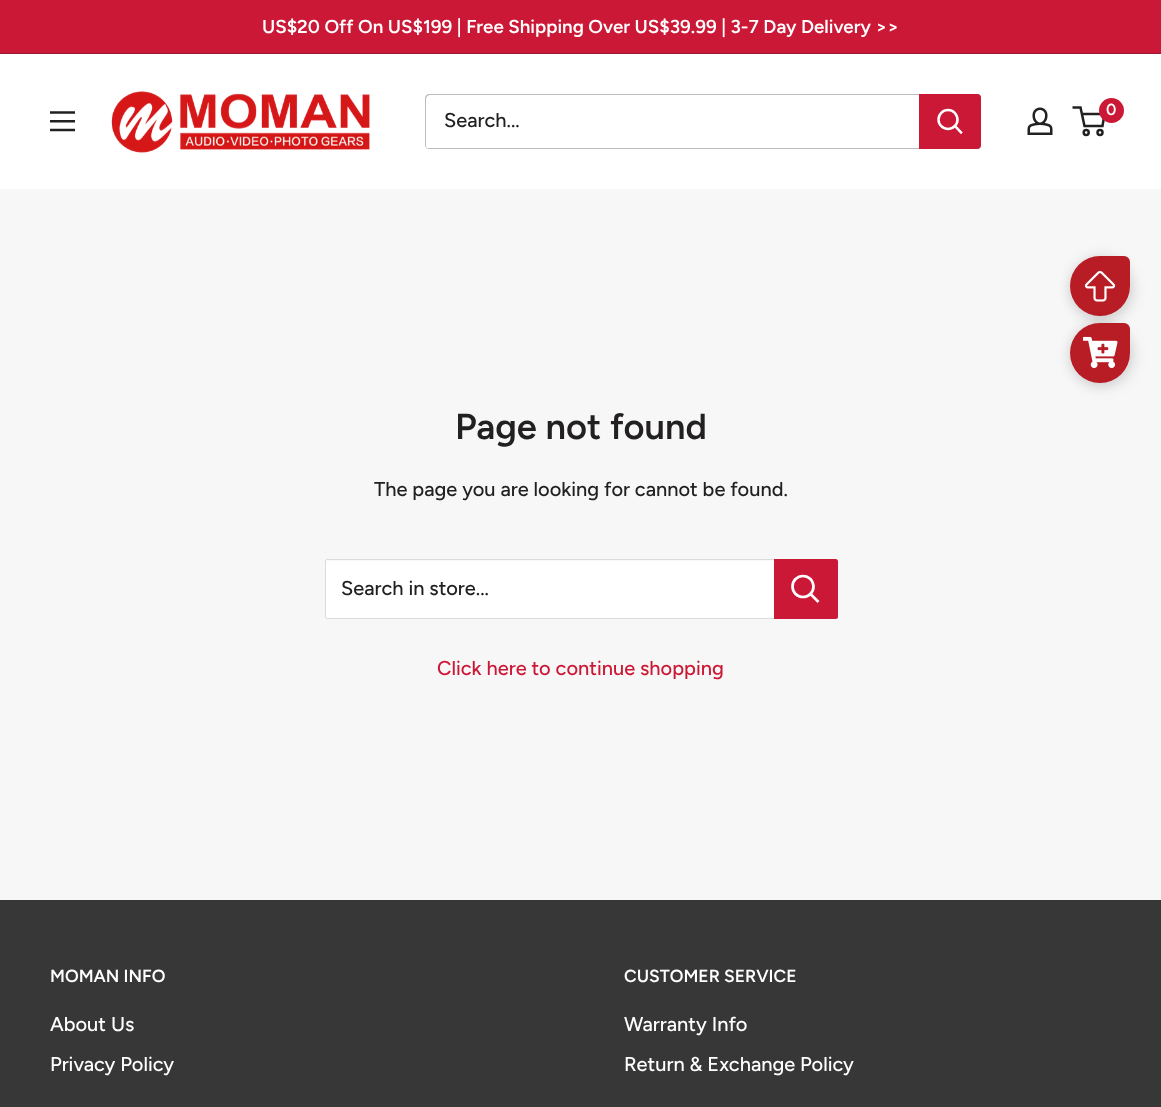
(async () => {
    const canvas = document.querySelector("canvas");
    canvas.width = 1161;
    canvas.height = 1107;
    const context = canvas.getContext("2d");
    context.miterLimit = 4;
    context.fontKerning = "normal";
    function write(s, x, y, font, color) {
        context.font = font;
        context.fillStyle = color;
        context.fillText(s, x, y);
    }
    function block(x, y, w, h, color) {
        context.fillStyle = color;
        context.fillRect(x, y, w, h);
    }
    async function photo(src, x, y, w, h) {
        const img = new Image();
        img.src = src;
        await img.decode();
        context.drawImage(img, x, y, w, h);
    }

    block(0, 0, 1161, 1107, "rgb(247, 247, 247)");
    block(0, 0, 1161, 53, "rgb(203, 24, 54)");
    block(0, 53, 1161, 1, "rgb(152, 26, 48)");
    write("US$20 Off On US$199 | Free Shipping Over US$39.99 | 3-7 Day Delivery >>", 262, 33, "600 18.75px Figtree", "rgb(255, 255, 255)");
    block(0, 54, 1161, 135, "rgb(255, 255, 255)");
    await photo("media/1.png", 111, 91, 259, 62);
    await photo("media/2.png", 1027, 107, 26, 28);
    context.beginPath();
    context.arc(1086.2, 132.5, 2.5, 0, Math.PI * 2);
    context.strokeStyle = "rgb(34, 32, 33)";
    context.lineWidth = 2.5;
    context.stroke();
    context.beginPath();
    context.arc(1100, 132.5, 2.5, 0, Math.PI * 2);
    context.stroke();
    context.beginPath();
    context.moveTo(1081.5, 114);
    context.lineTo(1104.5, 114);
    context.lineTo(1102.5, 126);
    context.lineTo(1084.5, 126);
    context.lineTo(1080.5, 107.5);
    context.lineTo(1072.5, 107.5);
    context.stroke();
    context.fillStyle = "rgb(203, 24, 54)";
    context.beginPath();
    context.arc(1111.5, 110.5, 12.5, 0, Math.PI * 2);
    context.fill();
    write("0", 1106, 115, "600 16px Figtree", "rgb(255, 255, 255)");
    await photo("media/3.png", 50, 111, 25, 21);
    context.fillStyle = "rgb(189, 188, 188)";
    context.beginPath();
    context.moveTo(426, 148);
    context.bezierCurveTo(427, 148, 428, 149, 429, 149);
    context.lineTo(977, 149);
    context.bezierCurveTo(979, 149, 981, 147, 981, 145);
    context.lineTo(981, 98);
    context.bezierCurveTo(981, 97, 981, 96, 980, 95);
    context.lineTo(980, 144);
    context.bezierCurveTo(980, 146, 978, 148, 976, 148);
    context.lineTo(428, 148);
    context.closePath();
    context.fill();
    context.beginPath();
    context.moveTo(430, 95);
    context.lineTo(980, 95);
    context.bezierCurveTo(979, 94, 978, 94, 977, 94);
    context.lineTo(429, 94);
    context.bezierCurveTo(427, 94, 425, 96, 425, 98);
    context.lineTo(425, 145);
    context.bezierCurveTo(425, 146, 426, 148, 427, 148);
    context.lineTo(426, 146);
    context.lineTo(426, 99);
    context.bezierCurveTo(426, 97, 428, 95, 430, 95);
    context.closePath();
    context.fill();
    write("Search...", 444, 127, "500 20px Figtree", "rgb(34, 32, 33)");
    context.fillStyle = "rgb(203, 24, 54)";
    context.beginPath();
    context.roundRect(919, 94, 62, 55, [0, 4, 4, 0]);
    context.fill();
    context.beginPath();
    context.moveTo(961, 132.5);
    context.lineTo(955, 126);
    context.strokeStyle = "rgb(255, 255, 255)";
    context.lineCap = "square";
    context.stroke();
    context.beginPath();
    context.arc(948, 119.5, 9.5, 0, Math.PI * 2);
    context.stroke();
    context.fillStyle = "rgba(0, 0, 0, 0.1)";
    context.filter = "blur(6px)";
    context.beginPath();
    context.roundRect(1070, 259, 60, 60, 30);
    context.fill();
    context.filter = "none";
    context.fillStyle = "rgba(0, 0, 0, 0.08)";
    context.filter = "blur(7px)";
    context.beginPath();
    context.roundRect(1070, 256, 65, 65, 32.5);
    context.fill();
    context.filter = "none";
    context.fillStyle = "rgb(184, 28, 37)";
    context.beginPath();
    context.roundRect(1070, 256, 60, 60, [30, 6, 30, 30]);
    context.fill();
    await photo("media/4.png", 1084, 271, 32, 31);
    context.fillStyle = "rgba(0, 0, 0, 0.1)";
    context.filter = "blur(6px)";
    context.beginPath();
    context.roundRect(1070, 325, 60, 60, 30);
    context.fill();
    context.filter = "none";
    context.fillStyle = "rgba(0, 0, 0, 0.08)";
    context.filter = "blur(7px)";
    context.beginPath();
    context.roundRect(1070, 323, 65, 65, 32.5);
    context.fill();
    context.filter = "none";
    context.fillStyle = "rgb(184, 28, 37)";
    context.beginPath();
    context.roundRect(1070, 323, 60, 60, [30, 6, 30, 30]);
    context.fill();
    await photo("media/5.png", 1083, 336, 35, 32);
    write("Page not found", 455, 439, "600 36.25px Figtree", "rgb(34, 32, 33)");
    write("The page you are looking for cannot be found.", 374, 496, "500 20px Figtree", "rgb(34, 32, 33)");
    context.fillStyle = "rgb(255, 255, 255)";
    context.beginPath();
    context.roundRect(325, 559, 449, 60, [2.5, 0, 0, 2.5]);
    context.fill();
    context.fillStyle = "rgb(249, 249, 249)";
    context.beginPath();
    context.moveTo(328, 561);
    context.lineTo(774, 561);
    context.lineTo(774, 560);
    context.lineTo(327, 560);
    context.lineTo(326, 561);
    context.lineTo(326, 562);
    context.closePath();
    context.fill();
    block(326, 559, 448, 1, "rgb(219, 219, 219)");
    block(326, 618, 448, 1, "rgb(219, 219, 219)");
    block(325, 560, 1, 58, "rgb(219, 219, 219)");
    write("Search in store...", 341, 595, "500 20px Figtree", "rgb(34, 32, 33)");
    context.fillStyle = "rgb(203, 24, 54)";
    context.beginPath();
    context.roundRect(774, 559, 64, 60, [0, 2.5, 2.5, 0]);
    context.fill();
    context.beginPath();
    context.moveTo(817.5, 601);
    context.lineTo(810.5, 594);
    context.lineWidth = 2.7;
    context.stroke();
    context.beginPath();
    context.arc(803, 586.5, 10.5, 0, Math.PI * 2);
    context.stroke();
    write("Click here to continue shopping", 437, 675, "500 20px Figtree", "rgb(203, 24, 54)");
    block(0, 900, 1161, 207, "rgb(55, 55, 55)");
    write("MOMAN INFO", 50, 982, "600 17.5px Figtree", "rgb(255, 255, 255)");
    write("About Us", 50, 1031, "500 20px Figtree", "rgb(255, 255, 255)");
    write("Privacy Policy", 50, 1071, "500 20px Figtree", "rgb(255, 255, 255)");
    write("CUSTOMER SERVICE", 624, 982, "600 17.5px Figtree", "rgb(255, 255, 255)");
    write("Warranty Info", 624, 1031, "500 20px Figtree", "rgb(255, 255, 255)");
    write("Return & Exchange Policy", 624, 1071, "500 20px Figtree", "rgb(255, 255, 255)");
})();
